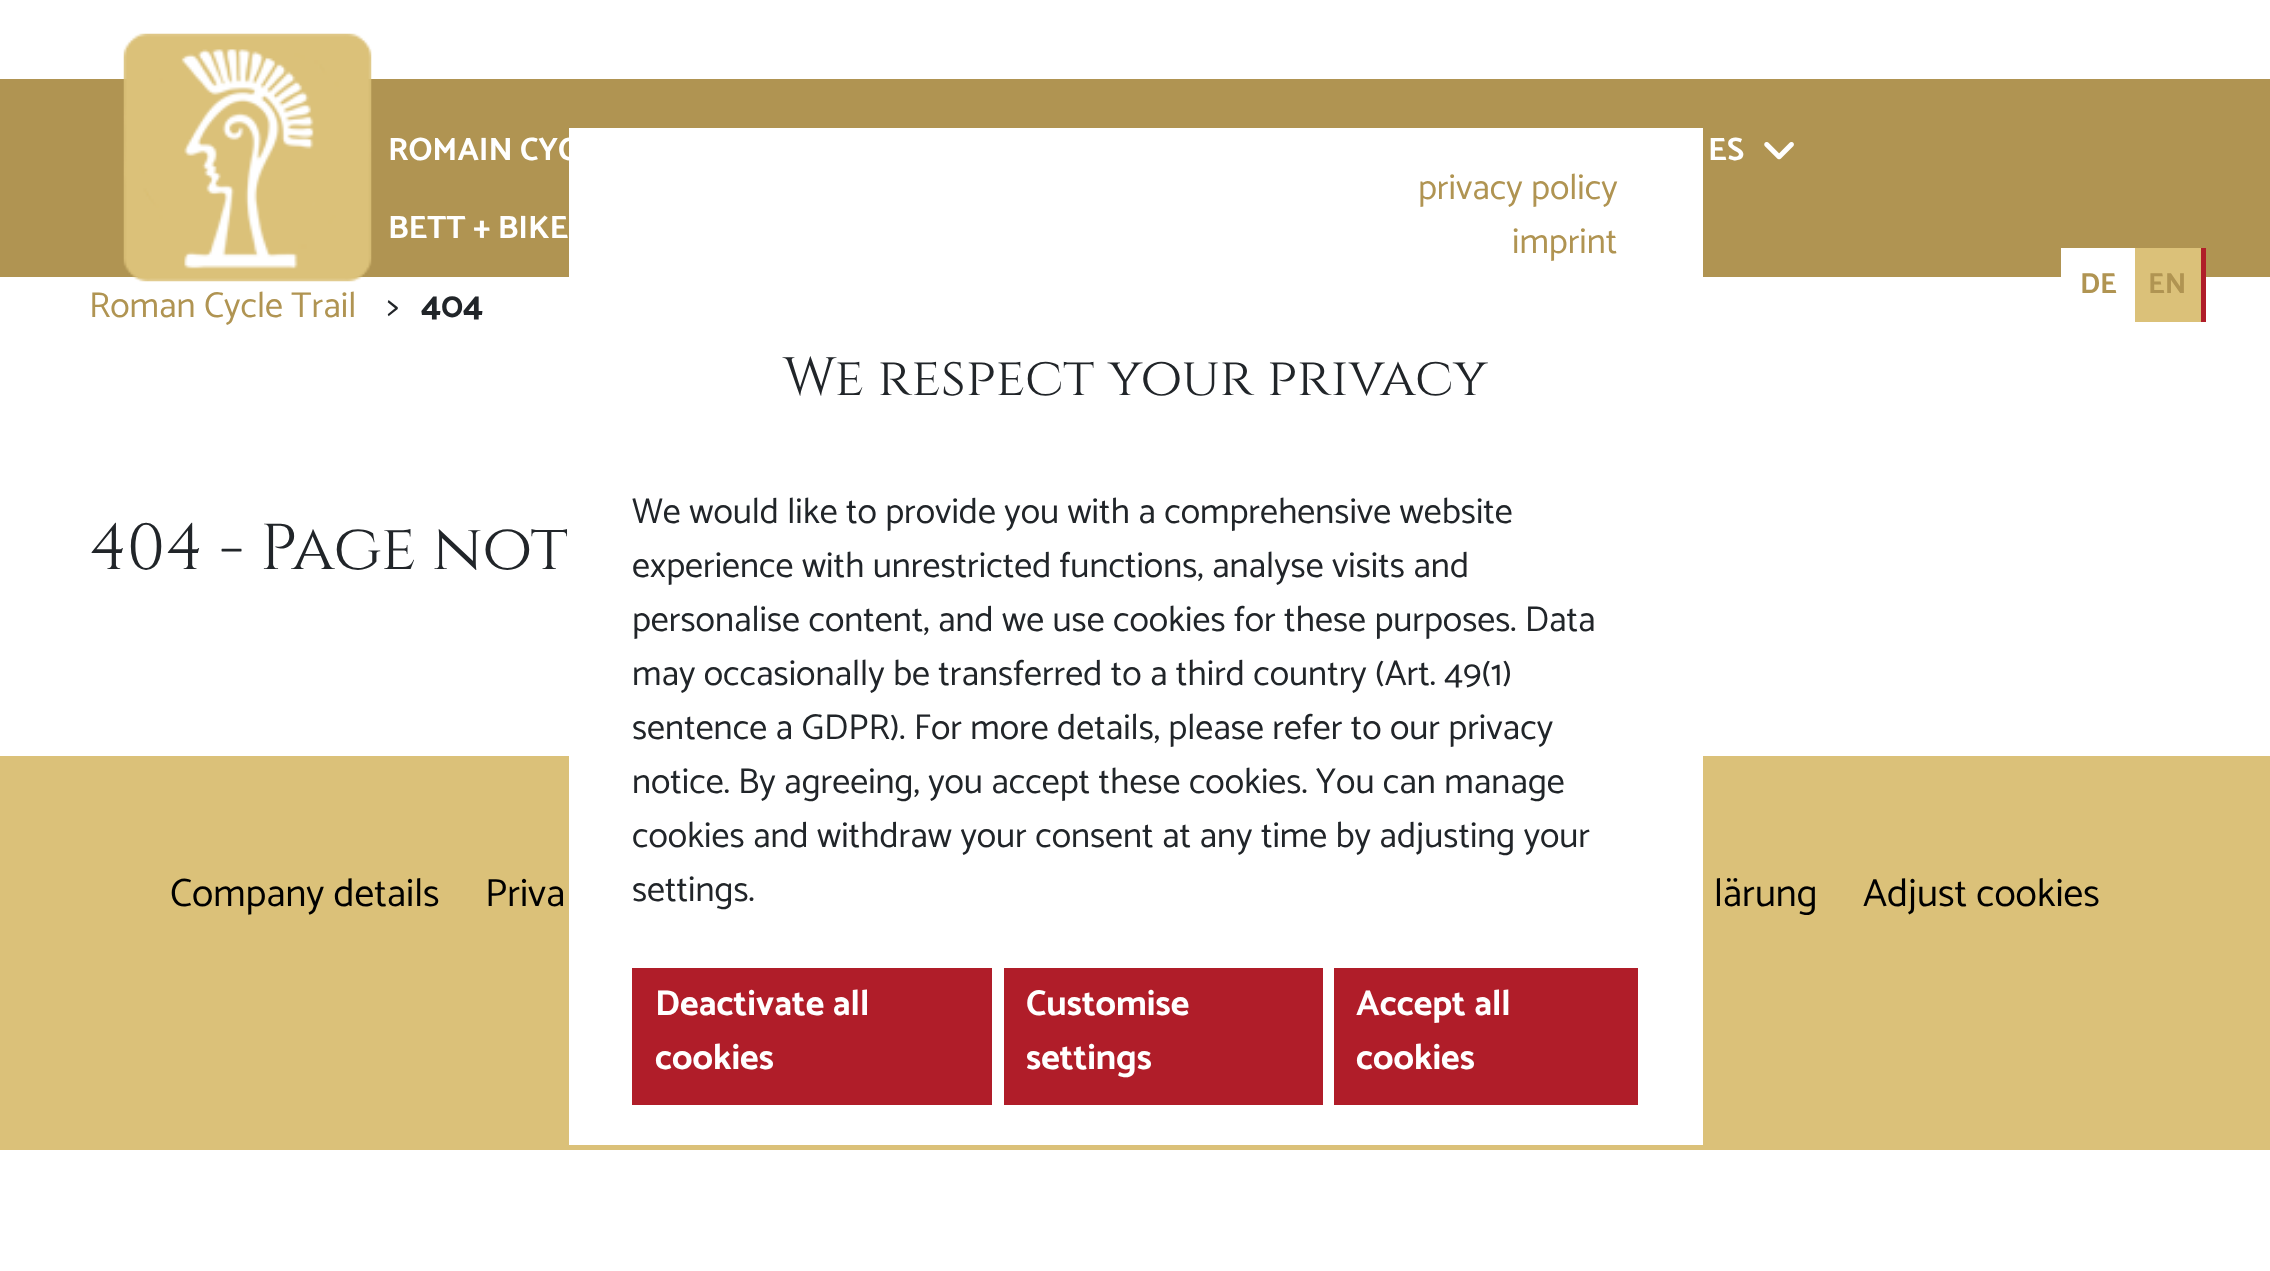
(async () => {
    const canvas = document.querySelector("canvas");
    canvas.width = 2270;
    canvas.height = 1271;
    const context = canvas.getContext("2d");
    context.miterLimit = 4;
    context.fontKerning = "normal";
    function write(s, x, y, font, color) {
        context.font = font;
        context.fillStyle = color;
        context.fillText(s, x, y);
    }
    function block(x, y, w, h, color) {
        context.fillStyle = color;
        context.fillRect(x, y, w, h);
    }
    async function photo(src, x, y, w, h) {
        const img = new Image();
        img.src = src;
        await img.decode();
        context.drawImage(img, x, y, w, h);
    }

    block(0, 0, 2270, 1271, "rgb(255, 255, 255)");
    block(0, 79, 2270, 198, "rgb(176, 148, 82)");
    await photo("media/1.png", 123, 33, 249, 249);
    write("ROMAIN CYC", 388, 160, "bold 32.5px Catamaran", "rgb(255, 255, 255)");
    write("ES", 1708, 160, "bold 32.5px Catamaran", "rgb(255, 255, 255)");
    await photo("media/2.png", 1764, 142, 30, 18);
    write("BETT + BIKE", 388, 238, "bold 32.5px Catamaran", "rgb(255, 255, 255)");
    block(2061, 248, 74, 29, "rgb(255, 255, 255)");
    block(2201, 248, 5, 74, "rgb(176, 29, 41)");
    write("DE", 2080, 293, "bold 29px Catamaran", "rgb(176, 148, 82)");
    block(2135, 248, 66, 74, "rgb(219, 193, 121)");
    write("EN", 2148, 293, "bold 29px Catamaran", "rgb(176, 148, 82)");
    write("Roman Cycle Trail", 89, 317, "36px Catamaran", "rgb(176, 148, 82)");
    write(">", 387, 317, "36px Catamaran", "rgb(33, 37, 41)");
    write("404", 421, 317, "bold 36px Catamaran", "rgb(33, 37, 41)");
    write("404 - Page not", 89, 569, "64.75px Cinzel", "rgb(33, 37, 41)");
    block(0, 756, 2270, 394, "rgb(219, 193, 121)");
    block(569, 128, 1134, 1017, "rgb(255, 255, 255)");
    write("privacy policy", 1418, 199, "36px Catamaran", "rgb(176, 148, 82)");
    write("imprint", 1512, 253, "36px Catamaran", "rgb(176, 148, 82)");
    write("We respect your privacy", 783, 395, "54px Cinzel", "rgb(33, 37, 41)");
    write("We would like to provide you with a comprehensive website", 632, 523, "36px Catamaran", "rgb(33, 37, 41)");
    write("experience with unrestricted functions, analyse visits and", 632, 577, "36px Catamaran", "rgb(33, 37, 41)");
    write("personalise content, and we use cookies for these purposes. Data", 632, 631, "36px Catamaran", "rgb(33, 37, 41)");
    write("may occasionally be transferred to a third country (Art. 49(1)", 632, 685, "36px Catamaran", "rgb(33, 37, 41)");
    write("sentence a GDPR). For more details, please refer to our privacy", 632, 739, "36px Catamaran", "rgb(33, 37, 41)");
    write("notice. By agreeing, you accept these cookies. You can manage", 632, 793, "36px Catamaran", "rgb(33, 37, 41)");
    write("cookies and withdraw your consent at any time by adjusting your", 632, 847, "36px Catamaran", "rgb(33, 37, 41)");
    write("settings.", 632, 901, "36px Catamaran", "rgb(33, 37, 41)");
    block(632, 968, 360, 137, "rgb(176, 29, 41)");
    write("Deactivate all", 655, 1015, "bold 36px Catamaran", "rgb(255, 255, 255)");
    write("cookies", 655, 1069, "bold 36px Catamaran", "rgb(255, 255, 255)");
    block(1004, 968, 319, 137, "rgb(176, 29, 41)");
    write("Customise", 1026, 1015, "bold 36px Catamaran", "rgb(255, 255, 255)");
    write("settings", 1026, 1069, "bold 36px Catamaran", "rgb(255, 255, 255)");
    block(1334, 968, 304, 137, "rgb(176, 29, 41)");
    write("Accept all", 1356, 1015, "bold 36px Catamaran", "rgb(255, 255, 255)");
    write("cookies", 1356, 1069, "bold 36px Catamaran", "rgb(255, 255, 255)");
    write("Company details", 170, 906, "39.5px Catamaran", "rgb(0, 0, 0)");
    write("Priva", 485, 906, "39.5px Catamaran", "rgb(0, 0, 0)");
    write("lärung", 1714, 906, "39.5px Catamaran", "rgb(0, 0, 0)");
    write("Adjust cookies", 1863, 906, "39.5px Catamaran", "rgb(0, 0, 0)");
})();
